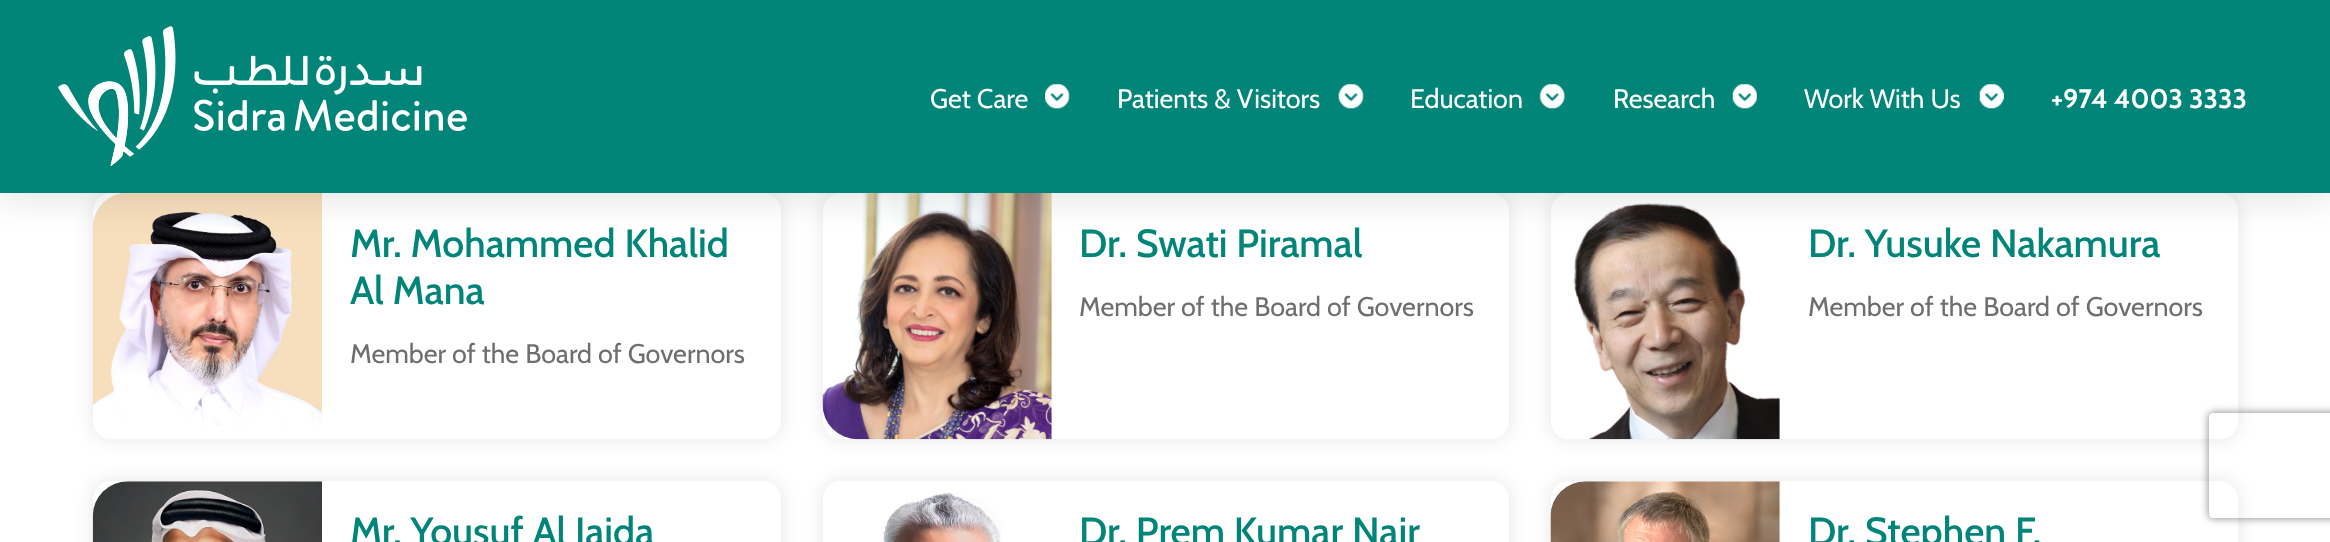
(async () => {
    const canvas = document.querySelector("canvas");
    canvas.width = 2330;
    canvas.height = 542;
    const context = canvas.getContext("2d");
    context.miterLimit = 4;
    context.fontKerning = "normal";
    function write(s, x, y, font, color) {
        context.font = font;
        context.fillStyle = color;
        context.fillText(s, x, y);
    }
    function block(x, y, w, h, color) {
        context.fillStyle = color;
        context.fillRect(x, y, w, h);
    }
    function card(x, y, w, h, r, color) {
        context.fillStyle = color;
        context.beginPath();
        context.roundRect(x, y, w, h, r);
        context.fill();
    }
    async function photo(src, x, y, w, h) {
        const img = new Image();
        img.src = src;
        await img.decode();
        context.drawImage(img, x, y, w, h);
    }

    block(0, 0, 2330, 542, "rgb(255, 255, 255)");
    context.fillStyle = "rgba(0, 0, 0, 0.1)";
    context.filter = "blur(9px)";
    context.beginPath();
    context.roundRect(93, 193, 688, 246, 18);
    context.fill();
    context.filter = "none";
    card(93, 193, 688, 246, 18, "rgb(255, 255, 255)");
    await photo("media/7.png", 93, 193, 229, 233);
    context.fillStyle = "rgba(0, 0, 0, 0.1)";
    context.filter = "blur(9px)";
    context.beginPath();
    context.roundRect(823, 193, 686, 246, 18);
    context.fill();
    context.filter = "none";
    card(823, 193, 686, 246, 18, "rgb(255, 255, 255)");
    await photo("media/8.png", 822, 193, 230, 247);
    context.save();
    context.beginPath();
    context.moveTo(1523, 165);
    context.lineTo(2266, 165);
    context.lineTo(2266, 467);
    context.lineTo(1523, 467);
    context.closePath();
    context.moveTo(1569, 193);
    context.lineTo(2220, 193);
    context.bezierCurveTo(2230, 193, 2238, 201, 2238, 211);
    context.lineTo(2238, 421);
    context.bezierCurveTo(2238, 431, 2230, 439, 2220, 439);
    context.lineTo(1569, 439);
    context.bezierCurveTo(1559, 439, 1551, 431, 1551, 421);
    context.lineTo(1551, 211);
    context.bezierCurveTo(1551, 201, 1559, 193, 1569, 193);
    context.closePath();
    context.clip("evenodd");
    context.fillStyle = "rgba(0, 0, 0, 0.1)";
    context.filter = "blur(9px)";
    context.beginPath();
    context.roundRect(1551, 193, 687, 246, 18);
    context.fill();
    context.filter = "none";
    context.restore();
    await photo("media/9.png", 1573, 203, 207, 237);
    context.fillStyle = "rgba(0, 0, 0, 0.1)";
    context.filter = "blur(17.5px)";
    context.beginPath();
    context.rect(0, 7, 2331, 193);
    context.fill();
    context.filter = "none";
    block(0, 0, 2330, 193, "rgb(0, 133, 120)");
    await photo("media/1.png", 58, 26, 409, 140);
    write("Get Care", 930, 108, "26.9px Cabin", "rgb(255, 255, 255)");
    await photo("media/2.png", 1045, 84, 25, 25);
    write("Patients & Visitors", 1117, 108, "26.9px Cabin", "rgb(255, 255, 255)");
    await photo("media/3.png", 1338, 84, 26, 25);
    write("Education", 1410, 108, "26.9px Cabin", "rgb(255, 255, 255)");
    await photo("media/4.png", 1539, 84, 26, 25);
    write("Research", 1613, 108, "26.9px Cabin", "rgb(255, 255, 255)");
    await photo("media/5.png", 1732, 84, 25, 25);
    write("Work With Us", 1804, 108, "26.9px Cabin", "rgb(255, 255, 255)");
    await photo("media/6.png", 1979, 84, 25, 25);
    write("+974 4003 3333", 2051, 108, "bold 26.9px Cabin", "rgb(255, 255, 255)");
    write("Mr. Mohammed Khalid", 350, 257, "500 39.25px Cabin", "rgb(0, 133, 120)");
    write("Al Mana", 350, 304, "500 39.25px Cabin", "rgb(0, 133, 120)");
    write("Member of the Board of Governors", 350, 363, "26.9px Cabin", "rgb(109, 110, 112)");
    write("Dr. Swati Piramal", 1079, 257, "500 39.25px Cabin", "rgb(0, 133, 120)");
    write("Member of the Board of Governors", 1079, 316, "26.9px Cabin", "rgb(109, 110, 112)");
    write("Dr. Yusuke Nakamura", 1808, 257, "500 39.25px Cabin", "rgb(0, 133, 120)");
    write("Member of the Board of Governors", 1808, 316, "26.9px Cabin", "rgb(109, 110, 112)");
    context.fillStyle = "rgba(0, 0, 0, 0.1)";
    context.filter = "blur(9px)";
    context.beginPath();
    context.roundRect(93, 481, 688, 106, 18);
    context.fill();
    context.filter = "none";
    card(93, 481, 688, 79, 18, "rgb(255, 255, 255)");
    await photo("media/10.png", 92, 481, 230, 61);
    write("Mr. Yousuf Al Jaida", 350, 545, "500 39.25px Cabin", "rgb(0, 133, 120)");
    context.fillStyle = "rgba(0, 0, 0, 0.1)";
    context.filter = "blur(9px)";
    context.beginPath();
    context.roundRect(823, 481, 686, 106, 18);
    context.fill();
    context.filter = "none";
    card(823, 481, 686, 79, 18, "rgb(255, 255, 255)");
    await photo("media/11.png", 883, 492, 119, 50);
    write("Dr. Prem Kumar Nair", 1079, 545, "500 39.25px Cabin", "rgb(0, 133, 120)");
    context.fillStyle = "rgba(0, 0, 0, 0.1)";
    context.filter = "blur(9px)";
    context.beginPath();
    context.roundRect(1551, 481, 687, 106, 18);
    context.fill();
    context.filter = "none";
    card(1551, 481, 687, 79, 18, "rgb(255, 255, 255)");
    await photo("media/12.png", 1550, 481, 230, 61);
    write("Dr. Stephen F.", 1808, 545, "500 39.25px Cabin", "rgb(0, 133, 120)");
    context.save();
    context.beginPath();
    context.moveTo(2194, 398);
    context.lineTo(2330, 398);
    context.lineTo(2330, 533);
    context.lineTo(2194, 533);
    context.closePath();
    context.moveTo(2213, 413);
    context.lineTo(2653, 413);
    context.bezierCurveTo(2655, 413, 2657, 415, 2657, 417);
    context.lineTo(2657, 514);
    context.bezierCurveTo(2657, 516, 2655, 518, 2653, 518);
    context.lineTo(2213, 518);
    context.bezierCurveTo(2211, 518, 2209, 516, 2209, 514);
    context.lineTo(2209, 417);
    context.bezierCurveTo(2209, 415, 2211, 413, 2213, 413);
    context.closePath();
    context.clip("evenodd");
    context.fillStyle = "rgb(128, 128, 128)";
    context.filter = "blur(4.5px)";
    context.beginPath();
    context.roundRect(2209, 413, 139, 105, 4);
    context.fill();
    context.filter = "none";
    context.restore();
})();
